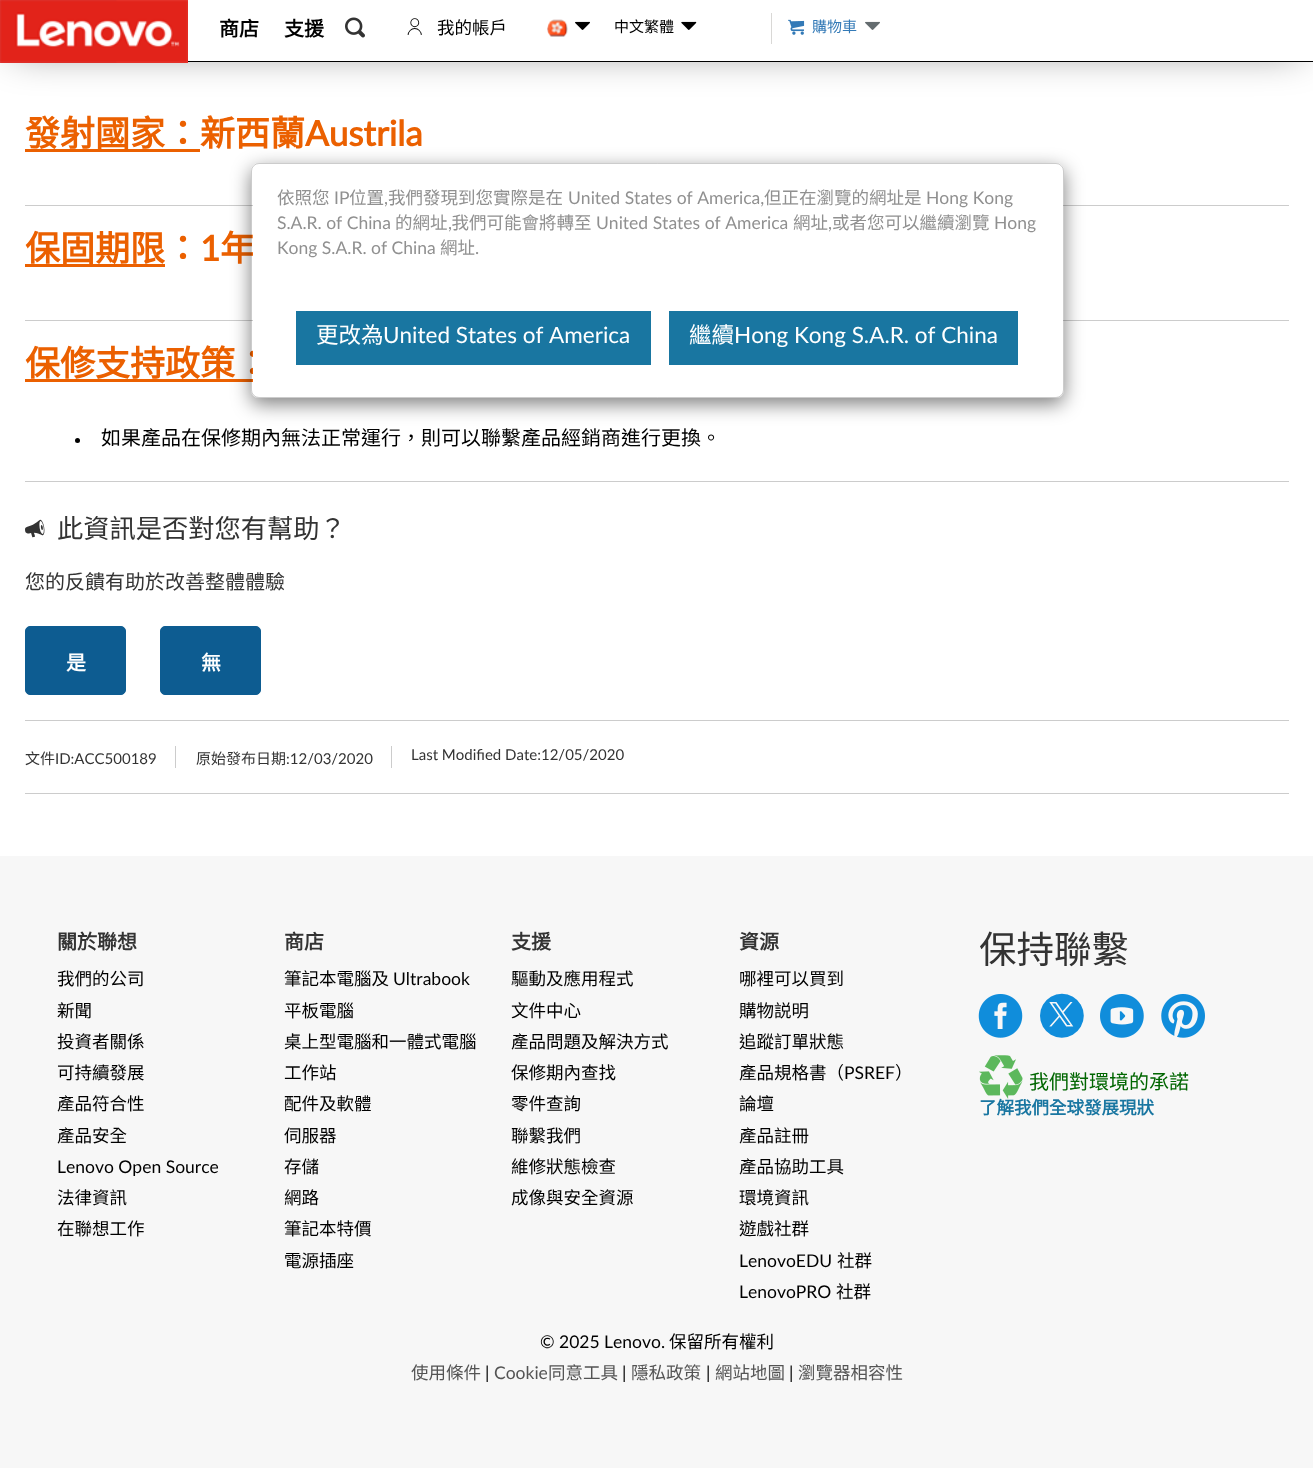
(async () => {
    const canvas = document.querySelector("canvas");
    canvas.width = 1313;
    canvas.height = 1468;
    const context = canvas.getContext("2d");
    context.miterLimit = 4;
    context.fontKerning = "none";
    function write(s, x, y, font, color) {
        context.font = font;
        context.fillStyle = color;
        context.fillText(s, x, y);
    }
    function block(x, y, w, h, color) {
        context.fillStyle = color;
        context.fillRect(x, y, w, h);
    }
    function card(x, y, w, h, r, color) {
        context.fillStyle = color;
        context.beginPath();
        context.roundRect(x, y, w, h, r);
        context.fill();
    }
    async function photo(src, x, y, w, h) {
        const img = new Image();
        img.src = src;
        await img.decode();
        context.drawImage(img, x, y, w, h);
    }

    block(0, 0, 1313, 1468, "rgb(255, 255, 255)");
    context.fillStyle = "rgba(0, 0, 0, 0.5)";
    context.filter = "blur(20px)";
    context.beginPath();
    context.rect(13, 13, 1288, 37);
    context.fill();
    context.filter = "none";
    block(188, 0, 1125, 61, "rgb(255, 255, 255)");
    block(188, 61, 1125, 1, "rgb(0, 0, 0)");
    await photo("media/1.png", 0, 0, 188, 63);
    write("商店", 219, 36, "bold 20px Noto Sans CJK HK", "rgb(0, 0, 0)");
    write("支援", 284, 36, "bold 20px Noto Sans CJK HK", "rgb(0, 0, 0)");
    await photo("media/2.png", 345, 17, 20, 21);
    write("󡑆", 406, 34, "17.5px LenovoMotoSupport", "rgb(0, 0, 0)");
    write("我的帳戶", 437, 34, "17.5px Noto Sans CJK HK", "rgb(0, 0, 0)");
    await photo("media/3.png", 547, 19, 21, 18);
    await photo("media/4.png", 575, 21, 15, 9);
    write("中文繁體", 614, 32, "15px Noto Sans CJK HK", "rgb(0, 0, 0)");
    await photo("media/5.png", 681, 21, 16, 9);
    block(771, 13, 1, 31, "rgb(217, 216, 214)");
    await photo("media/6.png", 788, 19, 17, 16);
    write("購物車", 812, 32, "15px Noto Sans CJK HK", "rgb(51, 122, 183)");
    await photo("media/7.png", 865, 21, 15, 9);
    write("發射國家：新西蘭", 25, 146, "bold 35px Noto Sans CJK HK", "rgb(235, 96, 0)");
    block(25, 149, 175, 3, "rgb(235, 96, 0)");
    write("Austrila", 305, 146, "bold 35px Lato", "rgb(235, 96, 0)");
    block(25, 205, 1264, 1, "rgb(204, 204, 204)");
    write("保固期限：", 25, 261, "bold 35px Noto Sans CJK HK", "rgb(235, 96, 0)");
    block(25, 264, 140, 3, "rgb(235, 96, 0)");
    write("1", 200, 261, "bold 35px Lato", "rgb(235, 96, 0)");
    write("年", 220, 261, "bold 35px Noto Sans CJK HK", "rgb(235, 96, 0)");
    block(25, 320, 1264, 1, "rgb(204, 204, 204)");
    write("保修支持政策：", 25, 376, "bold 35px Noto Sans CJK HK", "rgb(235, 96, 0)");
    block(25, 379, 228, 3, "rgb(235, 96, 0)");
    context.fillStyle = "rgb(0, 0, 0)";
    context.beginPath();
    context.arc(77.5, 440.5, 2.5, 0, Math.PI * 2);
    context.fill();
    write("如果產品在保修期內無法正常運行，則可以聯繫產品經銷商進行更換。", 101, 445, "20px Noto Sans CJK HK", "rgb(0, 0, 0)");
    block(25, 481, 1264, 1, "rgb(204, 204, 204)");
    write("󡉇", 25, 538, "20px LenovoMotoSupport", "rgb(51, 51, 51)");
    write("此資訊是否對您有幫助？", 57, 538, "26.25px Noto Sans CJK HK", "rgb(51, 51, 51)");
    write("您的反饋有助於改善整體體驗", 25, 589, "20px Noto Sans CJK HK", "rgb(51, 51, 51)");
    context.fillStyle = "rgb(13, 92, 145)";
    context.beginPath();
    context.roundRect(25.5, 626.5, 100, 68, 4.5);
    context.fill();
    context.strokeStyle = "rgb(13, 92, 145)";
    context.stroke();
    write("是", 66, 670, "bold 20px Noto Sans CJK HK", "rgb(255, 255, 255)");
    context.fillStyle = "rgb(13, 92, 145)";
    context.beginPath();
    context.roundRect(160.5, 626.5, 100, 68, 4.5);
    context.fill();
    context.stroke();
    write("無", 201, 670, "bold 20px Noto Sans CJK HK", "rgb(255, 255, 255)");
    block(25, 720, 1264, 1, "rgb(204, 204, 204)");
    block(25, 793, 1264, 1, "rgb(204, 204, 204)");
    block(175, 746, 1, 22, "rgb(204, 204, 204)");
    write("文件", 25, 764, "15px Noto Sans CJK HK", "rgb(51, 51, 51)");
    write("ID:ACC500189", 55, 764, "15px Lato", "rgb(51, 51, 51)");
    block(391, 746, 1, 22, "rgb(204, 204, 204)");
    write("原始發布日期", 196, 764, "15px Noto Sans CJK HK", "rgb(51, 51, 51)");
    write(":12/03/2020", 286, 764, "15px Lato", "rgb(51, 51, 51)");
    write("Last Modified Date:12/05/2020", 411, 760, "15px Lato", "rgb(51, 51, 51)");
    block(0, 856, 1313, 612, "rgb(247, 247, 247)");
    context.save();
    context.beginPath();
    context.moveTo(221, 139);
    context.lineTo(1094, 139);
    context.lineTo(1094, 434);
    context.lineTo(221, 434);
    context.closePath();
    context.moveTo(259, 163);
    context.lineTo(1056, 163);
    context.bezierCurveTo(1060.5, 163, 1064, 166.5, 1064, 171);
    context.lineTo(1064, 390);
    context.bezierCurveTo(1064, 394.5, 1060.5, 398, 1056, 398);
    context.lineTo(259, 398);
    context.bezierCurveTo(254.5, 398, 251, 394.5, 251, 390);
    context.lineTo(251, 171);
    context.bezierCurveTo(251, 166.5, 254.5, 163, 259, 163);
    context.closePath();
    context.clip("evenodd");
    context.fillStyle = "rgba(0, 0, 0, 0.5)";
    context.filter = "blur(9.5px)";
    context.beginPath();
    context.roundRect(251, 169, 813, 235, 8);
    context.fill();
    context.filter = "none";
    context.restore();
    card(253, 164, 810, 232, 6, "rgb(255, 255, 255)");
    context.beginPath();
    context.roundRect(251.5, 163.5, 812, 234, 7.5);
    context.strokeStyle = "rgba(0, 0, 0, 0.2)";
    context.stroke();
    write("依照您", 277, 204, "17.5px Noto Sans CJK HK", "rgb(144, 144, 144)");
    write("IP", 334, 204, "17.5px Lato", "rgb(144, 144, 144)");
    write("位置 我們發現到您實際是在", 349, 204, "17.5px Noto Sans CJK HK", "rgb(144, 144, 144)");
    write("United States of America,", 568, 204, "17.5px Lato", "rgb(144, 144, 144)");
    write("但正在瀏覽的網址是", 764, 204, "17.5px Noto Sans CJK HK", "rgb(144, 144, 144)");
    write("Hong Kong", 926, 204, "17.5px Lato", "rgb(144, 144, 144)");
    write(",", 384, 204, "17.5px Lato", "rgb(144, 144, 144)");
    write("S.A.R. of China", 277, 229, "17.5px Lato", "rgb(144, 144, 144)");
    write("的網址 我們可能會將轉至", 395, 229, "17.5px Noto Sans CJK HK", "rgb(144, 144, 144)");
    write("United States of America", 596, 229, "17.5px Lato", "rgb(144, 144, 144)");
    write("網址 或者您可以繼續瀏覽", 793, 229, "17.5px Noto Sans CJK HK", "rgb(144, 144, 144)");
    write("Hong", 994, 229, "17.5px Lato", "rgb(144, 144, 144)");
    write(",", 448, 229, "17.5px Lato", "rgb(144, 144, 144)");
    write(",", 828, 229, "17.5px Lato", "rgb(144, 144, 144)");
    write("Kong S.A.R. of China", 277, 254, "17.5px Lato", "rgb(144, 144, 144)");
    write("網址", 440, 254, "17.5px Noto Sans CJK HK", "rgb(144, 144, 144)");
    write(".", 475, 254, "17.5px Lato", "rgb(144, 144, 144)");
    block(296, 311, 355, 54, "rgb(25, 118, 161)");
    write("更改為", 316, 343, "22.5px Noto Sans CJK HK", "rgb(255, 255, 255)");
    write("United States of America", 383, 343, "22.5px Lato", "rgb(255, 255, 255)");
    block(669, 311, 349, 54, "rgb(25, 118, 161)");
    write("繼續", 689, 343, "22.5px Noto Sans CJK HK", "rgb(255, 255, 255)");
    write("Hong Kong S.A.R. of China", 734, 343, "22.5px Lato", "rgb(255, 255, 255)");
    write("保持聯繫", 979, 963, "37.5px Noto Sans CJK HK", "rgb(51, 51, 51)");
    await photo("media/8.png", 978, 994, 45, 44);
    write("󡔖", 1040, 1035, "44px LenovoMotoSupport", "rgb(16, 141, 219)");
    await photo("media/9.png", 1100, 994, 44, 44);
    await photo("media/10.png", 1161, 994, 44, 44);
    await photo("media/11.png", 979, 1055, 44, 44);
    write("我們對環境的承諾", 1029, 1089, "20px Noto Sans CJK HK", "rgb(0, 102, 0)");
    write("了解我們全球發展現狀", 979, 1114, "bold 17.5px Noto Sans CJK HK", "rgb(25, 118, 161)");
    write("關於聯想", 57, 949, "bold 20px Noto Sans CJK HK", "rgb(51, 51, 51)");
    write("我們的公司", 57, 985, "17.5px Noto Sans CJK HK", "rgb(0, 0, 0)");
    write("新聞", 57, 1017, "17.5px Noto Sans CJK HK", "rgb(0, 0, 0)");
    write("投資者關係", 57, 1048, "17.5px Noto Sans CJK HK", "rgb(0, 0, 0)");
    write("可持續發展", 57, 1079, "17.5px Noto Sans CJK HK", "rgb(0, 0, 0)");
    write("產品符合性", 57, 1110, "17.5px Noto Sans CJK HK", "rgb(0, 0, 0)");
    write("產品安全", 57, 1142, "17.5px Noto Sans CJK HK", "rgb(0, 0, 0)");
    write("Lenovo Open Source", 57, 1173, "17.5px Lato", "rgb(0, 0, 0)");
    write("法律資訊", 57, 1204, "17.5px Noto Sans CJK HK", "rgb(0, 0, 0)");
    write("在聯想工作", 57, 1235, "17.5px Noto Sans CJK HK", "rgb(0, 0, 0)");
    write("商店", 284, 949, "bold 20px Noto Sans CJK HK", "rgb(51, 51, 51)");
    write("筆記本電腦及", 284, 985, "17.5px Noto Sans CJK HK", "rgb(0, 0, 0)");
    write("Ultrabook", 393, 985, "17.5px Lato", "rgb(0, 0, 0)");
    write("平板電腦", 284, 1017, "17.5px Noto Sans CJK HK", "rgb(0, 0, 0)");
    write("桌上型電腦和一體式電腦", 284, 1048, "17.5px Noto Sans CJK HK", "rgb(0, 0, 0)");
    write("工作站", 284, 1079, "17.5px Noto Sans CJK HK", "rgb(0, 0, 0)");
    write("配件及軟體", 284, 1110, "17.5px Noto Sans CJK HK", "rgb(0, 0, 0)");
    write("伺服器", 284, 1142, "17.5px Noto Sans CJK HK", "rgb(0, 0, 0)");
    write("存儲", 284, 1173, "17.5px Noto Sans CJK HK", "rgb(0, 0, 0)");
    write("網路", 284, 1204, "17.5px Noto Sans CJK HK", "rgb(0, 0, 0)");
    write("筆記本特價", 284, 1235, "17.5px Noto Sans CJK HK", "rgb(0, 0, 0)");
    write("電源插座", 284, 1267, "17.5px Noto Sans CJK HK", "rgb(0, 0, 0)");
    write("支援", 511, 949, "bold 20px Noto Sans CJK HK", "rgb(51, 51, 51)");
    write("驅動及應用程式", 511, 985, "17.5px Noto Sans CJK HK", "rgb(0, 0, 0)");
    write("文件中心", 511, 1017, "17.5px Noto Sans CJK HK", "rgb(0, 0, 0)");
    write("產品問題及解決方式", 511, 1048, "17.5px Noto Sans CJK HK", "rgb(0, 0, 0)");
    write("保修期內查找", 511, 1079, "17.5px Noto Sans CJK HK", "rgb(0, 0, 0)");
    write("零件查詢", 511, 1110, "17.5px Noto Sans CJK HK", "rgb(0, 0, 0)");
    write("聯繫我們", 511, 1142, "17.5px Noto Sans CJK HK", "rgb(0, 0, 0)");
    write("維修狀態檢查", 511, 1173, "17.5px Noto Sans CJK HK", "rgb(0, 0, 0)");
    write("成像與安全資源", 511, 1204, "17.5px Noto Sans CJK HK", "rgb(0, 0, 0)");
    write("資源", 739, 949, "bold 20px Noto Sans CJK HK", "rgb(51, 51, 51)");
    write("哪裡可以買到", 739, 985, "17.5px Noto Sans CJK HK", "rgb(0, 0, 0)");
    write("購物説明", 739, 1017, "17.5px Noto Sans CJK HK", "rgb(0, 0, 0)");
    write("追蹤訂單狀態", 739, 1048, "17.5px Noto Sans CJK HK", "rgb(0, 0, 0)");
    write("產品規格書（", 739, 1079, "17.5px Noto Sans CJK HK", "rgb(0, 0, 0)");
    write("PSREF", 844, 1079, "17.5px Lato", "rgb(0, 0, 0)");
    write("）", 895, 1079, "17.5px Noto Sans CJK HK", "rgb(0, 0, 0)");
    write("論壇", 739, 1110, "17.5px Noto Sans CJK HK", "rgb(0, 0, 0)");
    write("產品註冊", 739, 1142, "17.5px Noto Sans CJK HK", "rgb(0, 0, 0)");
    write("產品協助工具", 739, 1173, "17.5px Noto Sans CJK HK", "rgb(0, 0, 0)");
    write("環境資訊", 739, 1204, "17.5px Noto Sans CJK HK", "rgb(0, 0, 0)");
    write("遊戲社群", 739, 1235, "17.5px Noto Sans CJK HK", "rgb(0, 0, 0)");
    write("LenovoEDU", 739, 1267, "17.5px Lato", "rgb(0, 0, 0)");
    write("社群", 837, 1267, "17.5px Noto Sans CJK HK", "rgb(0, 0, 0)");
    write("LenovoPRO", 739, 1298, "17.5px Lato", "rgb(0, 0, 0)");
    write("社群", 836, 1298, "17.5px Noto Sans CJK HK", "rgb(0, 0, 0)");
    write("© 2025 Lenovo.", 540, 1348, "17.5px Lato", "rgb(0, 0, 0)");
    write("保留所有權利", 669, 1348, "17.5px Noto Sans CJK HK", "rgb(0, 0, 0)");
    write("使用條件", 411, 1379, "17.5px Noto Sans CJK HK", "rgb(84, 84, 84)");
    write("|", 485, 1379, "17.5px Lato", "rgb(0, 0, 0)");
    write("Cookie", 494, 1379, "17.5px Lato", "rgb(84, 84, 84)");
    write("同意工具", 548, 1379, "17.5px Noto Sans CJK HK", "rgb(84, 84, 84)");
    write("|", 622, 1379, "17.5px Lato", "rgb(0, 0, 0)");
    write("隱私政策", 631, 1379, "17.5px Noto Sans CJK HK", "rgb(84, 84, 84)");
    write("|", 706, 1379, "17.5px Lato", "rgb(0, 0, 0)");
    write("網站地圖", 715, 1379, "17.5px Noto Sans CJK HK", "rgb(84, 84, 84)");
    write("|", 789, 1379, "17.5px Lato", "rgb(0, 0, 0)");
    write("瀏覽器相容性", 798, 1379, "17.5px Noto Sans CJK HK", "rgb(84, 84, 84)");
})();
